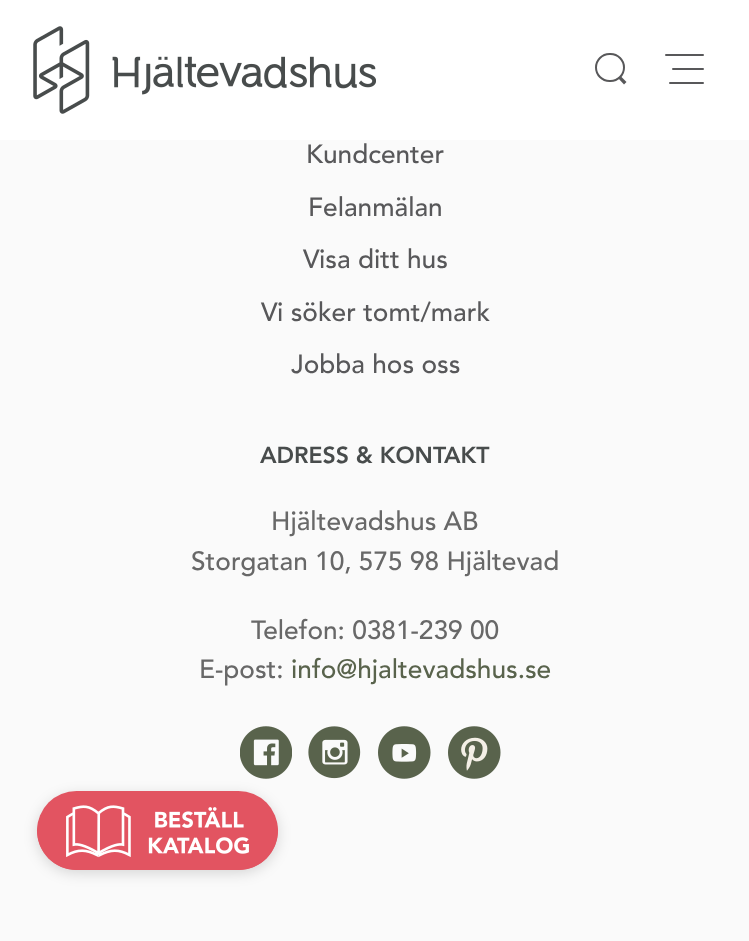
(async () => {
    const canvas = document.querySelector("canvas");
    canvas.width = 749;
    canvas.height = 941;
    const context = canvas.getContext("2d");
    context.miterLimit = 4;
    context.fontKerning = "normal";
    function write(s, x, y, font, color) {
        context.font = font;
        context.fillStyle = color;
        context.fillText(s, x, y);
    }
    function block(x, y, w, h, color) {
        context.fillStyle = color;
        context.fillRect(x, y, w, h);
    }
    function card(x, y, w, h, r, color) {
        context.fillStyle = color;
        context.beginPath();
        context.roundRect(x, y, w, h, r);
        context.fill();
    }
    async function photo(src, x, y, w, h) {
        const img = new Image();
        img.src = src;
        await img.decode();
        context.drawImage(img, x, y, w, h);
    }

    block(0, 0, 749, 941, "rgb(250, 250, 250)");
    block(0, 0, 749, 140, "rgb(255, 255, 255)");
    await photo("media/1.png", 33, 26, 343, 88);
    context.beginPath();
    context.roundRect(596, 54, 28, 27, 13.5);
    context.strokeStyle = "rgb(88, 88, 90)";
    context.lineWidth = 2;
    context.stroke();
    context.fillStyle = "rgb(88, 88, 90)";
    context.beginPath();
    context.moveTo(620.5, 76);
    context.lineTo(626.5, 82);
    context.lineTo(624, 84.5);
    context.lineTo(618, 78);
    context.closePath();
    context.fill();
    card(672, 68, 32, 2, 1, "rgb(88, 88, 90)");
    card(665, 54, 39, 2, 1, "rgb(88, 88, 90)");
    card(669, 82, 35, 2, 1, "rgb(88, 88, 90)");
    write("Kundcenter", 306, 163, "500 26.25px Avenir", "rgb(88, 88, 90)");
    write("Felanmälan", 308, 216, "500 26.25px Avenir", "rgb(88, 88, 90)");
    write("Visa ditt hus", 303, 268, "500 26.25px Avenir", "rgb(88, 88, 90)");
    write("Vi söker tomt/mark", 261, 321, "500 26.25px Avenir", "rgb(88, 88, 90)");
    write("Jobba hos oss", 291, 373, "500 26.25px Avenir", "rgb(88, 88, 90)");
    write("ADRESS & KONTAKT", 260, 463, "900 23px Avenir", "rgb(72, 76, 76)");
    write("Hjältevadshus AB", 271, 530, "500 26.25px Avenir", "rgb(104, 104, 104)");
    write("Storgatan 10, 575 98 Hjältevad", 191, 570, "500 26.25px Avenir", "rgb(104, 104, 104)");
    write("Telefon: 0381-239 00", 251, 639, "500 26.25px Avenir", "rgb(104, 104, 104)");
    write("E-post:", 199, 678, "500 26.25px Avenir", "rgb(104, 104, 104)");
    write("info@hjaltevadshus.se", 291, 678, "500 26.25px Avenir", "rgb(89, 99, 76)");
    await photo("media/2.png", 240, 726, 52, 53);
    await photo("media/3.png", 308, 726, 53, 53);
    await photo("media/4.png", 378, 726, 53, 53);
    await photo("media/5.png", 448, 726, 53, 53);
    context.fillStyle = "rgba(0, 0, 0, 0.15)";
    context.filter = "blur(7px)";
    context.beginPath();
    context.roundRect(37, 795, 241, 78, 39);
    context.fill();
    context.filter = "none";
    card(37, 791, 241, 79, 39.5, "rgb(226, 84, 97)");
    await photo("media/6.png", 37, 805, 241, 65);
})();
